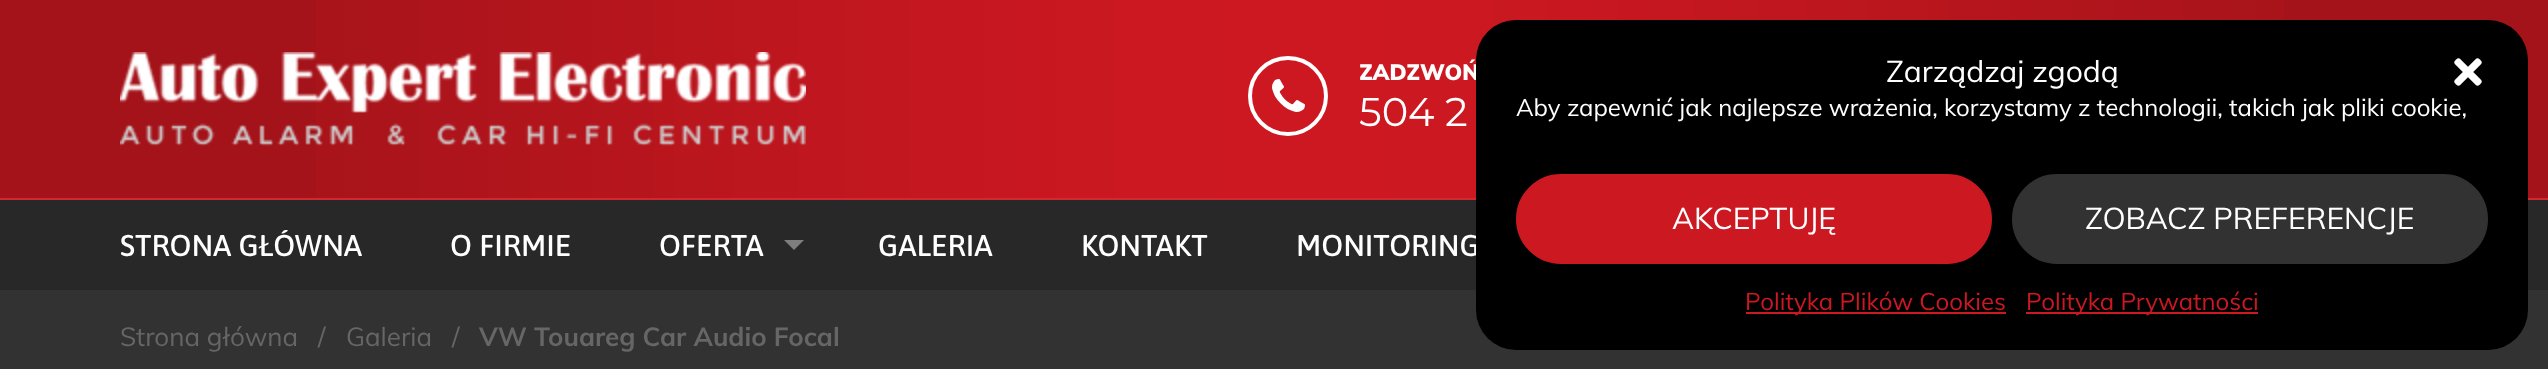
(async () => {
    const canvas = document.querySelector("canvas");
    canvas.width = 2548;
    canvas.height = 369;
    const context = canvas.getContext("2d");
    context.miterLimit = 4;
    context.fontKerning = "normal";
    function write(s, x, y, font, color) {
        context.font = font;
        context.fillStyle = color;
        context.fillText(s, x, y);
    }
    function block(x, y, w, h, color) {
        context.fillStyle = color;
        context.fillRect(x, y, w, h);
    }
    function card(x, y, w, h, r, color) {
        context.fillStyle = color;
        context.beginPath();
        context.roundRect(x, y, w, h, r);
        context.fill();
    }
    async function photo(src, x, y, w, h) {
        const img = new Image();
        img.src = src;
        await img.decode();
        context.drawImage(img, x, y, w, h);
    }

    block(0, 0, 2548, 369, "rgb(164, 19, 26)");
    await photo("media/1.png", 316, 0, 1968, 198);
    block(0, 198, 2548, 2, "rgb(210, 40, 49)");
    await photo("media/2.png", 120, 52, 686, 94);
    context.beginPath();
    context.arc(1288, 96, 38, 0, Math.PI * 2);
    context.strokeStyle = "rgb(255, 255, 255)";
    context.lineWidth = 4;
    context.stroke();
    await photo("media/3.png", 1272, 79, 33, 33);
    write("ZADZWOŃ", 1359, 80, "900 22px Muli", "rgb(255, 255, 255)");
    write("504 2", 1359, 126, "40px Montserrat", "rgb(255, 255, 255)");
    block(0, 200, 2548, 90, "rgb(40, 40, 40)");
    write("MONITORING", 1296, 256, "500 30px Asap", "rgb(255, 255, 255)");
    block(0, 290, 2548, 79, "rgb(50, 50, 50)");
    card(1476, 20, 1052, 330, 40, "rgb(0, 0, 0)");
    write("Zarządzaj zgodą", 1886, 82, "30px Muli", "rgb(255, 255, 255)");
    await photo("media/4.png", 2454, 58, 28, 28);
    write("Aby zapewnić jak najlepsze wrażenia, korzystamy z technologii, takich jak pliki cookie,", 1516, 116, "24px Muli", "rgb(255, 255, 255)");
    context.fillStyle = "rgb(204, 24, 33)";
    context.beginPath();
    context.roundRect(1517, 175, 474, 88, 44);
    context.fill();
    context.strokeStyle = "rgb(204, 24, 33)";
    context.lineWidth = 2;
    context.stroke();
    write("AKCEPTUJĘ", 1672, 229, "30px Muli", "rgb(255, 255, 255)");
    context.fillStyle = "rgb(50, 50, 50)";
    context.beginPath();
    context.roundRect(2013, 175, 474, 88, 44);
    context.fill();
    context.strokeStyle = "rgb(50, 50, 50)";
    context.stroke();
    write("ZOBACZ PREFERENCJE", 2085, 229, "30px Muli", "rgb(255, 255, 255)");
    block(1746, 312, 260, 2, "rgb(204, 24, 33)");
    write("Polityka Plików Cookies", 1745, 310, "24px Muli", "rgb(204, 24, 33)");
    block(2026, 312, 232, 2, "rgb(204, 24, 33)");
    write("Polityka Prywatności", 2026, 310, "24px Muli", "rgb(204, 24, 33)");
    write("STRONA GŁÓWNA", 120, 256, "500 30px Asap", "rgb(255, 255, 255)");
    write("O FIRMIE", 450, 256, "500 30px Asap", "rgb(255, 255, 255)");
    write("OFERTA", 659, 256, "500 30px Asap", "rgb(255, 255, 255)");
    context.fillStyle = "rgb(126, 126, 126)";
    context.beginPath();
    context.moveTo(784, 240);
    context.lineTo(804, 240);
    context.lineTo(794, 250);
    context.closePath();
    context.fill();
    write("GALERIA", 878, 256, "500 30px Asap", "rgb(255, 255, 255)");
    write("KONTAKT", 1081, 256, "500 30px Asap", "rgb(255, 255, 255)");
    write("Strona główna", 120, 346, "26px Muli", "rgb(102, 102, 102)");
    write("/", 318, 346, "26px Muli", "rgb(102, 102, 102)");
    write("Galeria", 346, 346, "26px Muli", "rgb(102, 102, 102)");
    write("/", 452, 346, "26px Muli", "rgb(102, 102, 102)");
    write("VW Touareg Car Audio Focal", 479, 346, "bold 26px Muli", "rgb(102, 102, 102)");
})();
